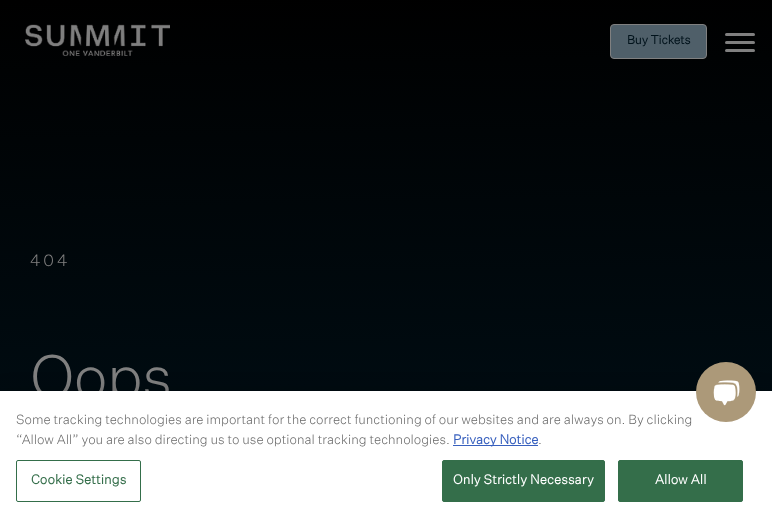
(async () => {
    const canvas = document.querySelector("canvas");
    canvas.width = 772;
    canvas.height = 518;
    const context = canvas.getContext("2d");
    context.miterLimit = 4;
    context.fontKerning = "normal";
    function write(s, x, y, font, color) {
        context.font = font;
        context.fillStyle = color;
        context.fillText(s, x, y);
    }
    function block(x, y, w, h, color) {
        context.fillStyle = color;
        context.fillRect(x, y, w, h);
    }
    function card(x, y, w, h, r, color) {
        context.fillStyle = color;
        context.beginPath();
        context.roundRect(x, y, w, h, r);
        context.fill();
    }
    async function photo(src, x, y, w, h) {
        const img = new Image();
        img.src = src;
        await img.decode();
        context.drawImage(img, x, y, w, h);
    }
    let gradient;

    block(0, 0, 772, 518, "rgb(255, 255, 255)");
    gradient = context.createLinearGradient(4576, -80, 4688, 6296);
    gradient.addColorStop(0, "rgb(0, 0, 0)");
    gradient.addColorStop(0.2, "rgb(0, 36, 55)");
    gradient.addColorStop(0.4, "rgb(61, 77, 86)");
    gradient.addColorStop(0.6, "rgb(126, 105, 76)");
    gradient.addColorStop(0.8, "rgb(116, 48, 19)");
    gradient.addColorStop(1, "rgb(0, 0, 0)");
    context.fillStyle = gradient;
    context.fillRect(0, 0, 772, 391);
    await photo("media/1.png", 25, 24, 145, 32);
    context.fillStyle = "rgb(79, 95, 105)";
    context.beginPath();
    context.roundRect(610.5, 24.5, 96, 34, 3.5);
    context.fill();
    context.strokeStyle = "rgb(128, 128, 128)";
    context.stroke();
    context.letterSpacing = "-0.1px";
    write("Buy Tickets", 627, 44, "bold 12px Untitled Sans", "rgb(0, 18, 27)");
    card(725, 33, 30, 3, 1.5, "rgb(128, 128, 128)");
    card(725, 41, 30, 3, 1.5, "rgb(128, 128, 128)");
    card(725, 49, 30, 3, 1.5, "rgb(128, 128, 128)");
    context.letterSpacing = "3px";
    write("404", 30, 266, "300 16px Untitled Sans", "rgb(128, 128, 128)");
    context.letterSpacing = "-1px";
    write("Oops", 30, 398, "300 60px Untitled Sans", "rgb(128, 128, 128)");
    context.fillStyle = "rgba(0, 0, 0, 0.2)";
    context.filter = "blur(9px)";
    context.beginPath();
    context.rect(0, 391, 772, 127);
    context.fill();
    context.filter = "none";
    block(0, 391, 772, 127, "rgb(255, 255, 255)");
    context.fillStyle = "rgb(172, 153, 121)";
    context.beginPath();
    context.arc(726, 392, 30, 0, Math.PI * 2);
    context.fill();
    await photo("media/2.png", 713, 380, 27, 26);
    context.letterSpacing = "0px";
    write("Some tracking technologies are important for the correct functioning of our websites and are always on. By clicking", 16, 424, "300 13px Untitled Sans", "rgb(105, 105, 105)");
    write("“Allow All” you are also directing us to use optional tracking technologies.", 16, 444, "300 13px Untitled Sans", "rgb(105, 105, 105)");
    block(453, 445, 85, 1, "rgb(56, 96, 190)");
    write("Privacy Notice", 453, 444, "bold 13px Untitled Sans", "rgb(56, 96, 190)");
    write(".", 538, 444, "300 13px Untitled Sans", "rgb(105, 105, 105)");
    context.beginPath();
    context.roundRect(16.5, 460.5, 124, 41, 1.5);
    context.strokeStyle = "rgb(52, 110, 74)";
    context.stroke();
    context.letterSpacing = "0.1px";
    write("Cookie Settings", 31, 484, "bold 13px Untitled Sans", "rgb(52, 110, 74)");
    context.beginPath();
    context.roundRect(442.5, 460.5, 162, 41, 1.5);
    context.fill();
    context.stroke();
    write("Only Strictly Necessary", 453, 484, "bold 13px Untitled Sans", "rgb(255, 255, 255)");
    context.fillStyle = "rgb(52, 110, 74)";
    context.beginPath();
    context.roundRect(618.5, 460.5, 124, 41, 1.5);
    context.fill();
    context.stroke();
    write("Allow All", 655, 484, "bold 13px Untitled Sans", "rgb(255, 255, 255)");
})();
